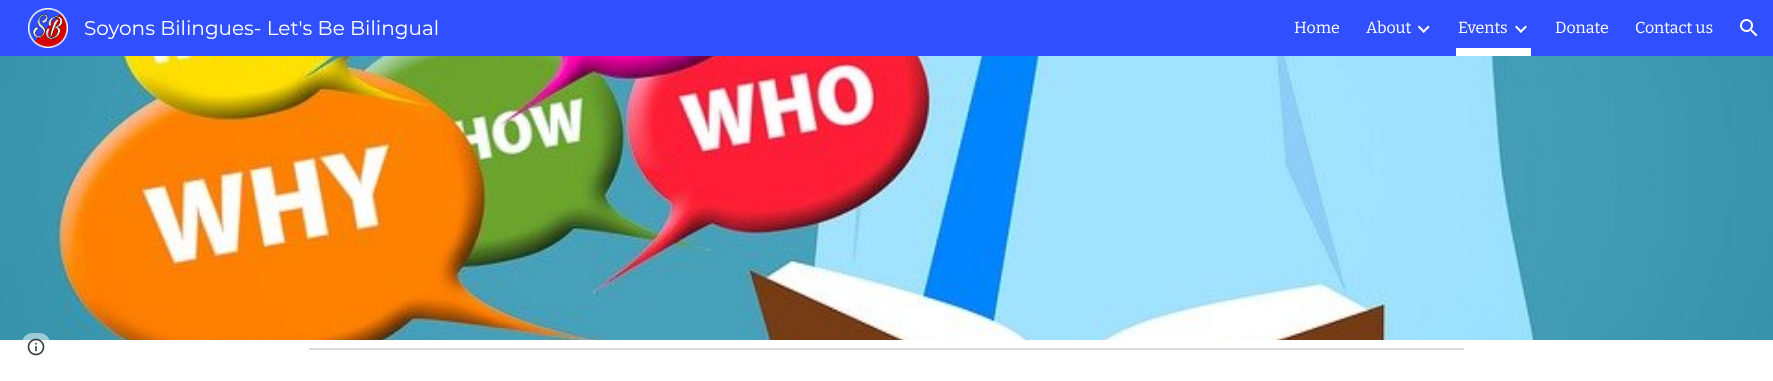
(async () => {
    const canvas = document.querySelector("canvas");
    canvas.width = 1773;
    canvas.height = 381;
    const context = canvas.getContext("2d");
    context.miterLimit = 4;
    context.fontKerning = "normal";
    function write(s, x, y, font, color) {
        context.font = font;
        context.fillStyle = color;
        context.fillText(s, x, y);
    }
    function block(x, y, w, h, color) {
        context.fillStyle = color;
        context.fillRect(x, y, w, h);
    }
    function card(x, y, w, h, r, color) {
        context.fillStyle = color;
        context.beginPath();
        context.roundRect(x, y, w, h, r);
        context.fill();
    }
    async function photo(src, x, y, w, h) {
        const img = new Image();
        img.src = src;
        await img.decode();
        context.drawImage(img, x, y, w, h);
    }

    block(0, 0, 1773, 381, "rgb(255, 255, 255)");
    block(0, 0, 1773, 56, "rgb(48, 79, 255)");
    await photo("media/1.png", 28, 8, 40, 40);
    write("Soyons Bilingues- Let's Be Bilingual", 84, 35, "20px Montserrat", "rgb(255, 255, 255)");
    write("Home", 1294, 33, "16px Bitter", "rgb(255, 255, 255)");
    write("About", 1366, 33, "16px Bitter", "rgb(255, 255, 255)");
    await photo("media/2.png", 1417, 25, 13, 8);
    block(1456, 48, 75, 8, "rgb(255, 255, 255)");
    write("Events", 1458, 33, "16px Bitter", "rgb(255, 255, 255)");
    await photo("media/3.png", 1515, 25, 12, 8);
    write("Donate", 1555, 33, "16px Bitter", "rgb(255, 255, 255)");
    write("Contact us", 1635, 33, "16px Bitter", "rgb(255, 255, 255)");
    await photo("media/4.png", 1740, 19, 18, 18);
    await photo("media/5.png", 0, 56, 1773, 284);
    block(309, 348, 1155, 2, "rgb(217, 217, 217)");
    card(22, 333, 28, 28, 10, "rgba(255, 255, 255, 0.5)");
    await photo("media/6.png", 27, 338, 18, 18);
})();
